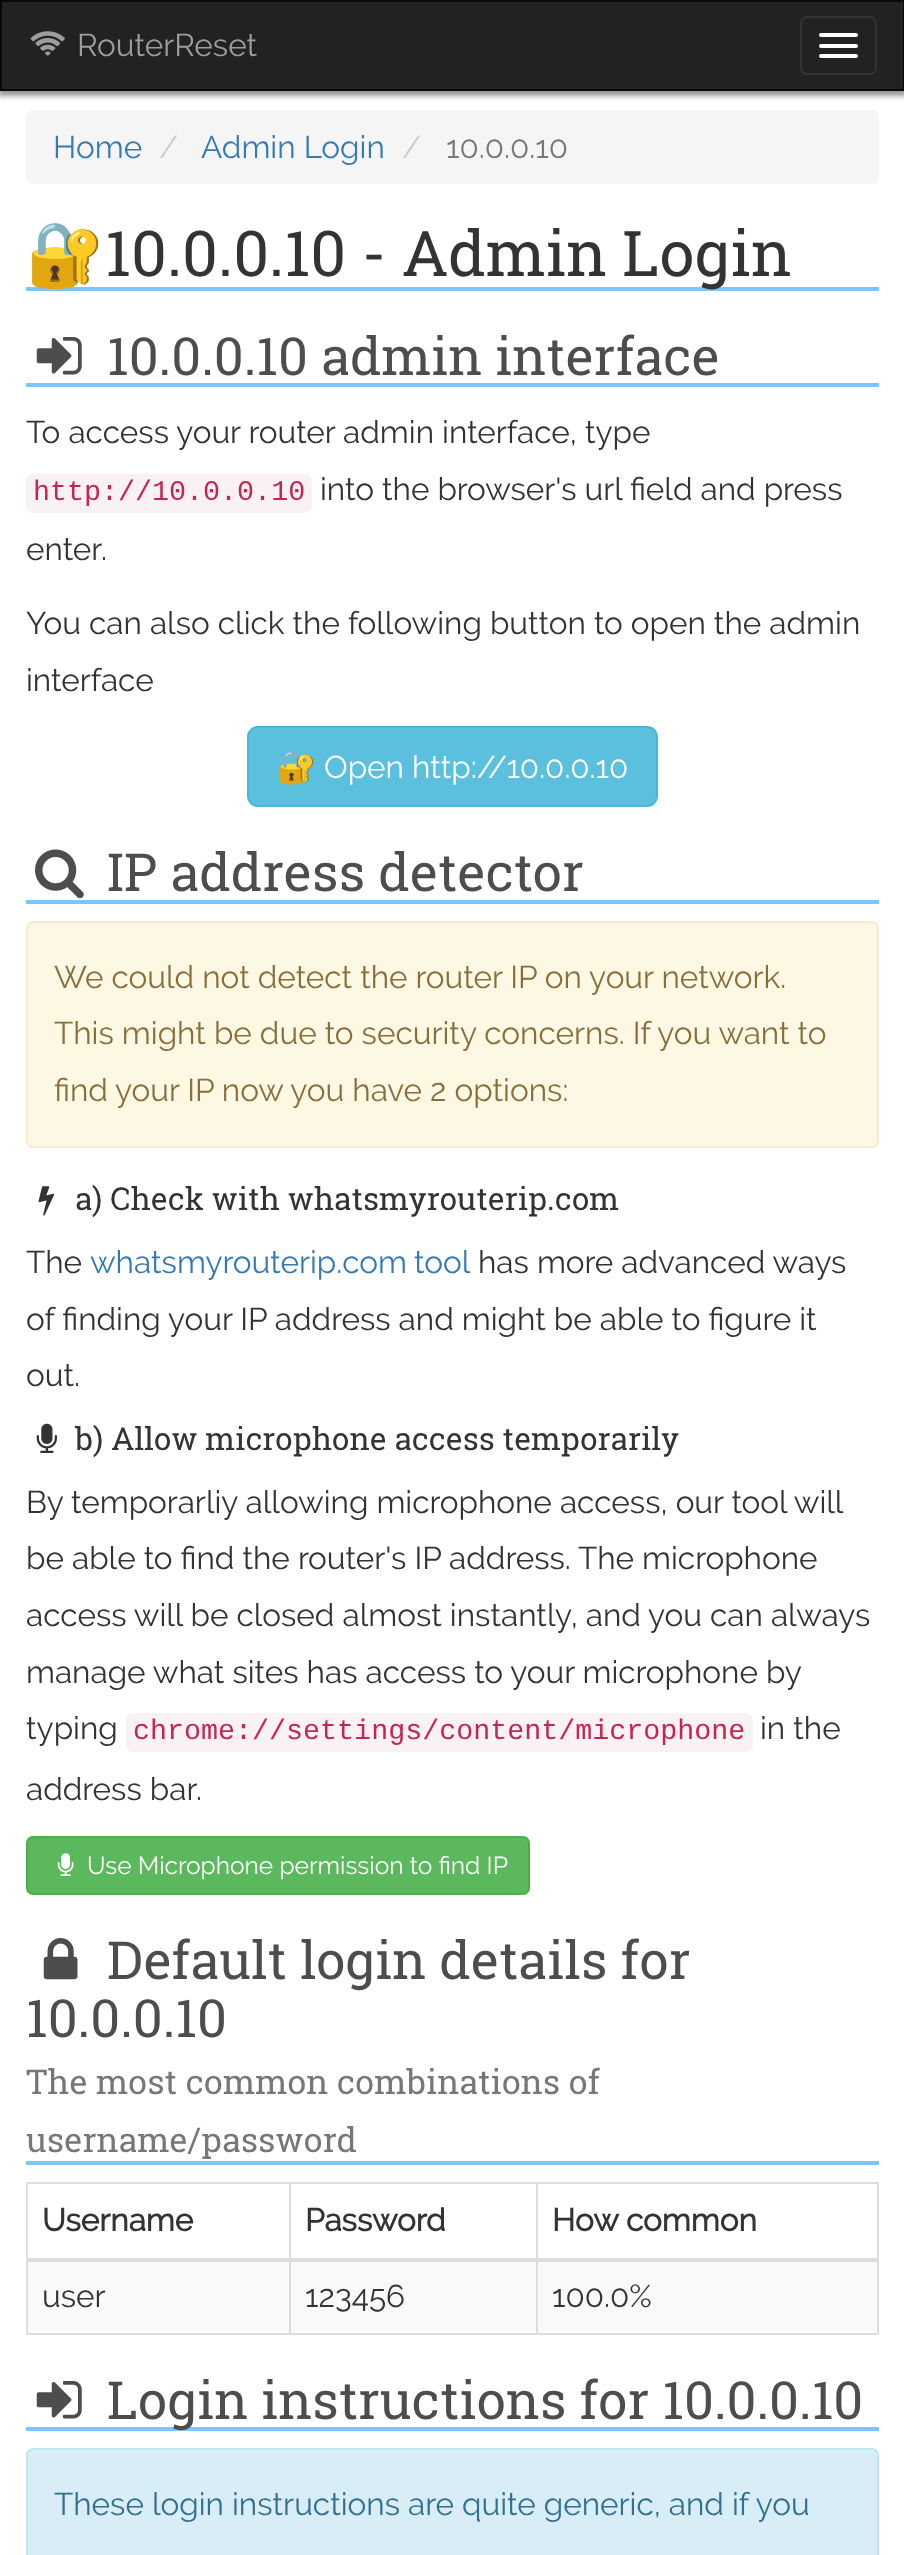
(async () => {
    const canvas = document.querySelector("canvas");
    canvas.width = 904;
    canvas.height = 2555;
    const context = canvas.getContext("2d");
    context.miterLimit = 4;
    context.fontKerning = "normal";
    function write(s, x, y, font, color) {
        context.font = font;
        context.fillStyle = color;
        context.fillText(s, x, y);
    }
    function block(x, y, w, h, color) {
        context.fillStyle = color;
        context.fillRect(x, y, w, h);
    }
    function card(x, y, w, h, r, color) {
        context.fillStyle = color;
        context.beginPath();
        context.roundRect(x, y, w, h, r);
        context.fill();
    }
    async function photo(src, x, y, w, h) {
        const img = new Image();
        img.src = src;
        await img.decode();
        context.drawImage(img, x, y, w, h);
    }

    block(0, 0, 904, 2555, "rgb(255, 255, 255)");
    context.fillStyle = "rgba(0, 0, 0, 0.4)";
    context.filter = "blur(2.5px)";
    context.beginPath();
    context.rect(-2, 2, 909, 94);
    context.fill();
    context.filter = "none";
    context.fillStyle = "rgb(34, 34, 34)";
    context.beginPath();
    context.rect(1, 1, 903, 89);
    context.fill();
    context.strokeStyle = "rgb(8, 8, 8)";
    context.lineWidth = 2;
    context.stroke();
    await photo("media/1.png", 30, 31, 35, 25);
    write("RouterReset", 77, 56, "31.5px Raleway", "rgb(157, 157, 157)");
    context.beginPath();
    context.roundRect(801, 17, 75, 57, 6);
    context.strokeStyle = "rgb(51, 51, 51)";
    context.stroke();
    card(819, 33, 39, 4, 2, "rgb(255, 255, 255)");
    card(819, 44, 39, 4, 2, "rgb(255, 255, 255)");
    card(819, 54, 39, 4, 2, "rgb(255, 255, 255)");
    card(26, 110, 853, 74, 7, "rgb(245, 245, 245)");
    write("Home", 53, 158, "31.5px Raleway", "rgb(51, 122, 183)");
    write("/", 159, 158, "31.5px Raleway", "rgb(204, 204, 204)");
    write("Admin Login", 201, 158, "31.5px Raleway", "rgb(51, 122, 183)");
    write("/", 402, 158, "31.5px Raleway", "rgb(204, 204, 204)");
    write("10.0.0.10", 446, 158, "31.5px Raleway", "rgb(119, 119, 119)");
    block(26, 287, 853, 4, "rgb(124, 198, 255)");
    write("🔐", 26, 276, "63px Noto Color Emoji", "rgb(51, 51, 51)");
    write("10.0.0.10 - Admin Login", 105, 276, "63px Roboto Slab", "rgb(51, 51, 51)");
    block(26, 383, 853, 4, "rgb(124, 198, 255)");
    await photo("media/2.png", 36, 337, 46, 38);
    write("10.0.0.10 admin interface", 107, 375, "52.5px Roboto Slab", "rgb(77, 77, 77)");
    write("To access your router admin interface, type", 26, 443, "31.5px Raleway", "rgb(51, 51, 51)");
    card(26, 474, 286, 39, 7, "rgb(249, 242, 244)");
    write("http://10.0.0.10", 33, 500, "28.35px Liberation Mono", "rgb(199, 37, 78)");
    write("into the browser's url field and press", 320, 500, "31.5px Raleway", "rgb(51, 51, 51)");
    write("enter.", 26, 560, "31.5px Raleway", "rgb(51, 51, 51)");
    write("You can also click the following button to open the admin", 26, 634, "31.5px Raleway", "rgb(51, 51, 51)");
    write("interface", 26, 691, "31.5px Raleway", "rgb(51, 51, 51)");
    context.fillStyle = "rgb(91, 192, 222)";
    context.beginPath();
    context.roundRect(248, 727, 409, 79, 10);
    context.fill();
    context.strokeStyle = "rgb(70, 184, 218)";
    context.stroke();
    write("🔐", 277, 778, "31.5px Noto Color Emoji", "rgb(255, 255, 255)");
    write("Open http://10.0.0.10", 324, 778, "31.5px Raleway", "rgb(255, 255, 255)");
    block(26, 900, 853, 4, "rgb(124, 198, 255)");
    await photo("media/3.png", 35, 849, 49, 50);
    write("IP address detector", 107, 891, "52.5px Roboto Slab", "rgb(77, 77, 77)");
    context.fillStyle = "rgb(252, 248, 227)";
    context.beginPath();
    context.roundRect(27, 922, 851, 225, 6);
    context.fill();
    context.strokeStyle = "rgb(250, 235, 204)";
    context.stroke();
    write("We could not detect the router IP on your network.", 54, 988, "31.5px Raleway", "rgb(138, 109, 59)");
    write("This might be due to security concerns. If you want to", 54, 1044, "31.5px Raleway", "rgb(138, 109, 59)");
    write("find your IP now you have 2 options:", 54, 1101, "31.5px Raleway", "rgb(138, 109, 59)");
    await photo("media/4.png", 38, 1186, 17, 30);
    write("a) Check with whatsmyrouterip.com", 75, 1210, "31.5px Roboto Slab", "rgb(51, 51, 51)");
    write("The", 26, 1273, "31.5px Raleway", "rgb(51, 51, 51)");
    context.wordSpacing = "-1px";
    write("whatsmyrouterip.com tool", 90, 1273, "31.5px Raleway", "rgb(51, 122, 183)");
    context.wordSpacing = "0px";
    write("has more advanced ways", 478, 1273, "31.5px Raleway", "rgb(51, 51, 51)");
    write("of finding your IP address and might be able to figure it", 26, 1330, "31.5px Raleway", "rgb(51, 51, 51)");
    write("out.", 26, 1386, "31.5px Raleway", "rgb(51, 51, 51)");
    await photo("media/5.png", 36, 1423, 21, 30);
    write("b) Allow microphone access temporarily", 75, 1450, "31.5px Roboto Slab", "rgb(51, 51, 51)");
    write("By temporarliy allowing microphone access, our tool will", 26, 1513, "31.5px Raleway", "rgb(51, 51, 51)");
    write("be able to find the router's IP address. The microphone", 26, 1569, "31.5px Raleway", "rgb(51, 51, 51)");
    write("access will be closed almost instantly, and you can always", 26, 1626, "31.5px Raleway", "rgb(51, 51, 51)");
    write("manage what sites has access to your microphone by", 26, 1683, "31.5px Raleway", "rgb(51, 51, 51)");
    write("typing", 26, 1739, "31.5px Raleway", "rgb(51, 51, 51)");
    card(126, 1713, 627, 39, 7, "rgb(249, 242, 244)");
    write("chrome://settings/content/microphone", 133, 1739, "28.35px Liberation Mono", "rgb(199, 37, 78)");
    write("in the", 760, 1739, "31.5px Raleway", "rgb(51, 51, 51)");
    write("address bar.", 26, 1800, "31.5px Raleway", "rgb(51, 51, 51)");
    context.fillStyle = "rgb(92, 184, 92)";
    context.beginPath();
    context.roundRect(27, 1837, 502, 57, 6);
    context.fill();
    context.strokeStyle = "rgb(76, 174, 76)";
    context.stroke();
    await photo("media/6.png", 57, 1853, 17, 23);
    write("Use Microphone permission to find IP", 87, 1874, "24.5px Raleway", "rgb(255, 255, 255)");
    block(26, 2161, 853, 4, "rgb(124, 198, 255)");
    await photo("media/7.png", 43, 1938, 35, 42);
    write("Default login details for", 107, 1979, "52.5px Roboto Slab", "rgb(77, 77, 77)");
    write("10.0.0.10", 26, 2037, "52.5px Roboto Slab", "rgb(77, 77, 77)");
    write("The most common combinations of", 26, 2094, "34.1px Roboto Slab", "rgb(119, 119, 119)");
    write("username/password", 26, 2152, "34.1px Roboto Slab", "rgb(119, 119, 119)");
    context.strokeStyle = "rgb(221, 221, 221)";
    context.strokeRect(27, 2183, 851, 151);
    write("Username", 42, 2231, "bold 31.5px Raleway", "rgb(51, 51, 51)");
    write("Password", 305, 2231, "bold 31.5px Raleway", "rgb(51, 51, 51)");
    block(28, 2262, 849, 71, "rgb(249, 249, 249)");
    block(289, 2184, 2, 149, "rgb(221, 221, 221)");
    block(536, 2184, 2, 149, "rgb(221, 221, 221)");
    block(28, 2258, 849, 4, "rgb(221, 221, 221)");
    write("How common", 552, 2231, "bold 31.5px Raleway", "rgb(51, 51, 51)");
    write("user", 42, 2307, "31.5px Raleway", "rgb(51, 51, 51)");
    write("123456", 305, 2307, "31.5px Raleway", "rgb(51, 51, 51)");
    write("100.0%", 552, 2307, "31.5px Raleway", "rgb(51, 51, 51)");
    block(26, 2427, 853, 4, "rgb(124, 198, 255)");
    await photo("media/2.png", 36, 2381, 46, 38);
    write("Login instructions for 10.0.0.10", 107, 2419, "52.5px Roboto Slab", "rgb(77, 77, 77)");
    context.fillStyle = "rgb(217, 237, 247)";
    context.beginPath();
    context.roundRect(27, 2449, 851, 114, 6);
    context.fill();
    context.strokeStyle = "rgb(188, 232, 241)";
    context.stroke();
    write("These login instructions are quite generic, and if you", 54, 2515, "31.5px Raleway", "rgb(49, 112, 143)");
})();
